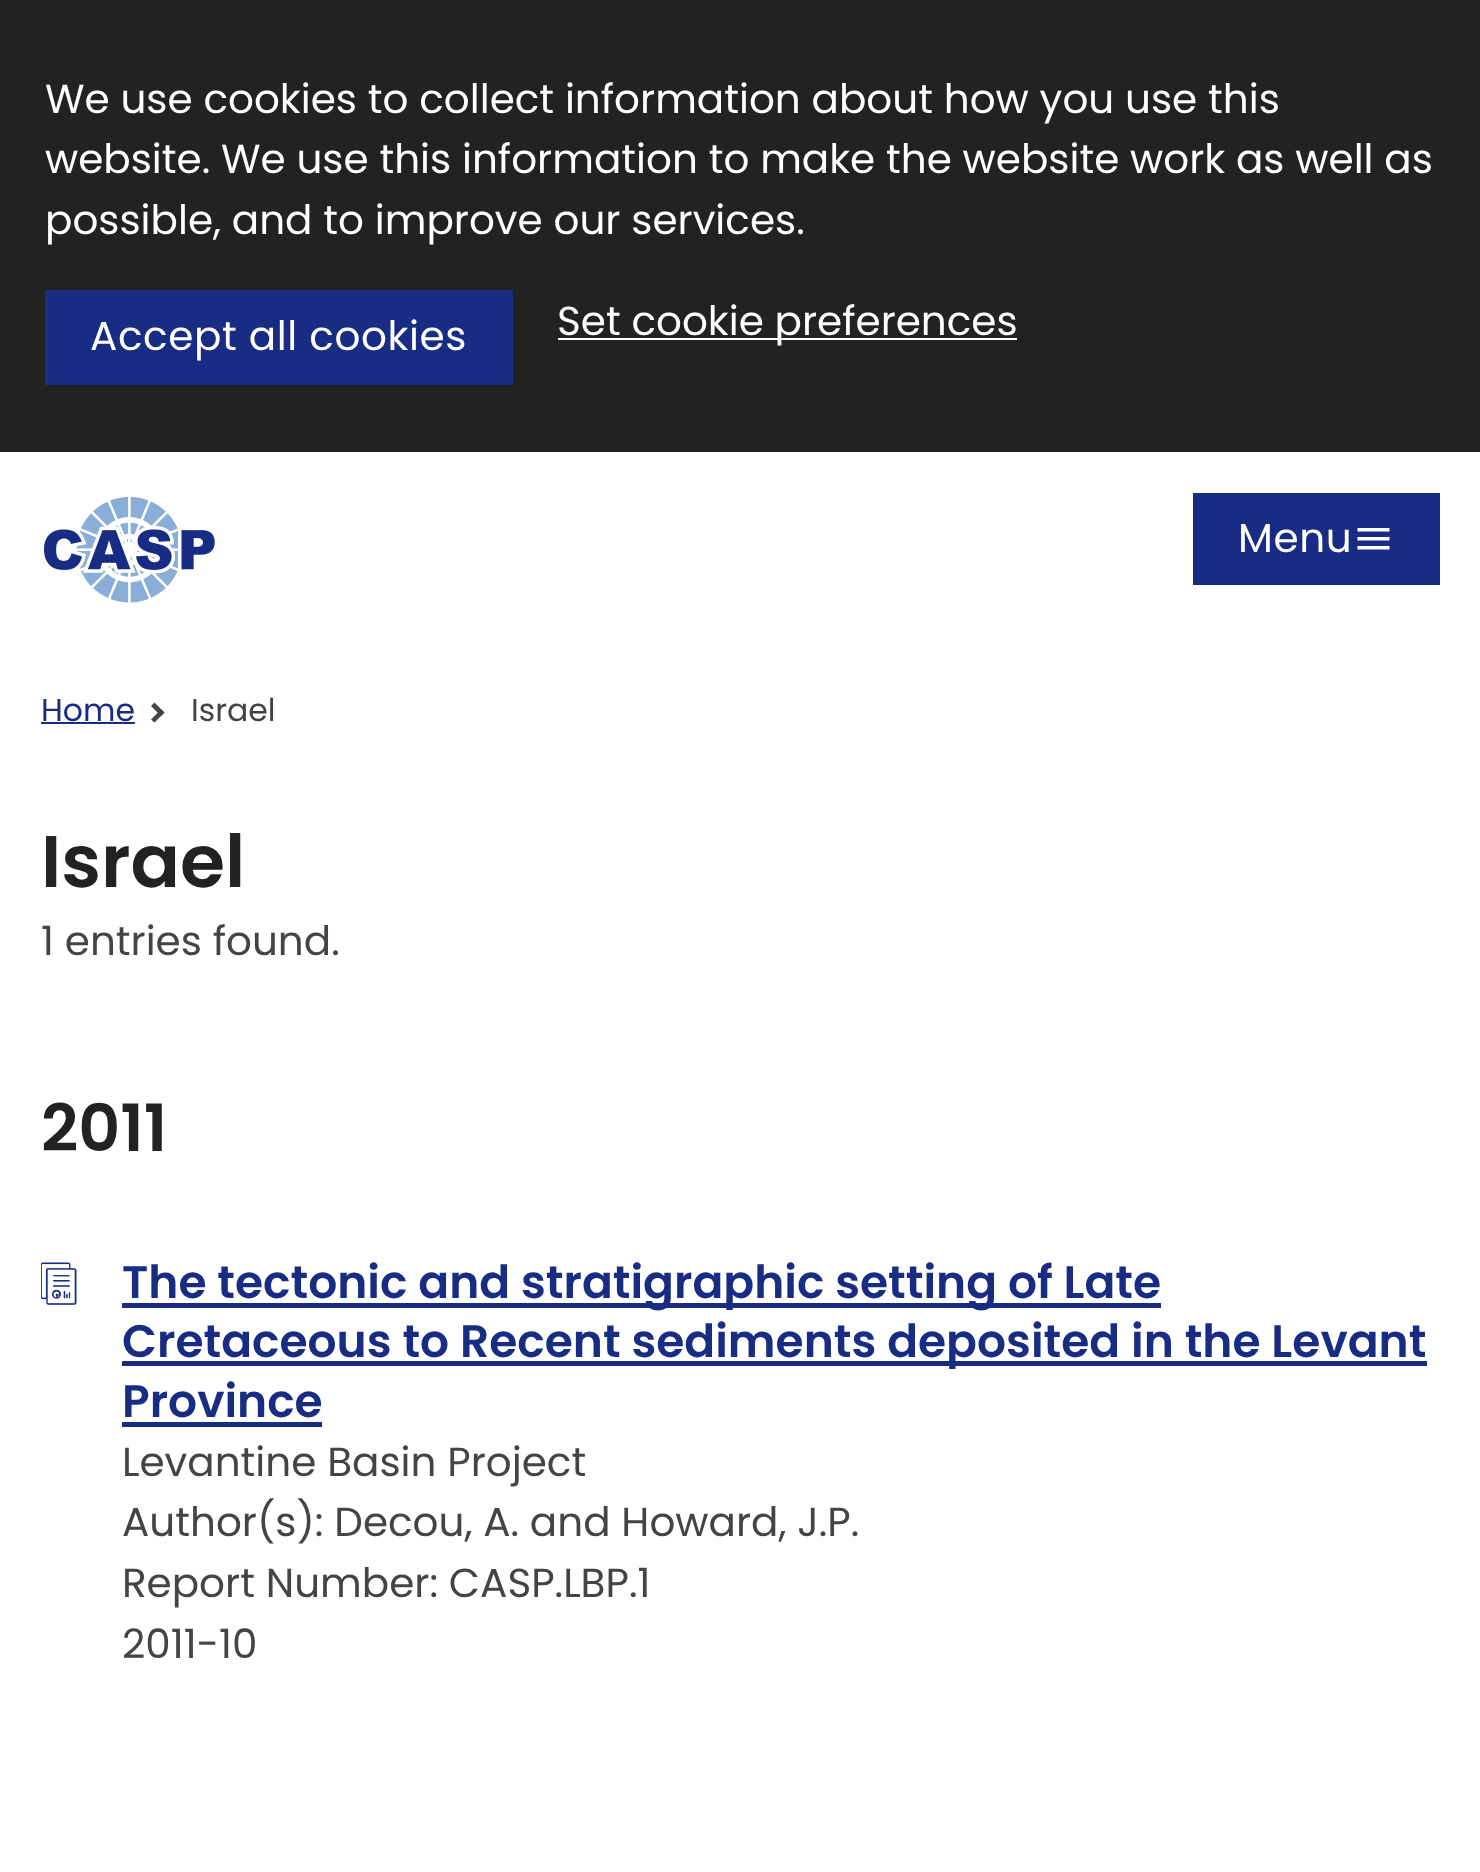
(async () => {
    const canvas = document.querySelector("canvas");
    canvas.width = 1480;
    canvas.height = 1872;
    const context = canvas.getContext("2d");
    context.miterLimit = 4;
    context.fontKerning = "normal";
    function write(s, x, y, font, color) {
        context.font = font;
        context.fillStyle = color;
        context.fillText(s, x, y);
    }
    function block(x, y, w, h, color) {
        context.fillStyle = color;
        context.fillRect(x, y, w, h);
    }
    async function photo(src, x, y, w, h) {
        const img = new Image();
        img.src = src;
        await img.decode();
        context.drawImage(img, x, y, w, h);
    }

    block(0, 0, 1480, 1872, "rgb(255, 255, 255)");
    block(0, 0, 1480, 452, "rgb(34, 34, 34)");
    write("We use cookies to collect information about how you use this", 45, 113, "40.5px Poppins", "rgb(255, 255, 255)");
    write("website. We use this information to make the website work as well as", 45, 173, "40.5px Poppins", "rgb(255, 255, 255)");
    write("possible, and to improve our services.", 45, 234, "40.5px Poppins", "rgb(255, 255, 255)");
    block(45, 290, 468, 95, "rgb(24, 44, 131)");
    context.letterSpacing = "0.6px";
    write("Accept all cookies", 90, 350, "40.5px Poppins", "rgb(255, 255, 255)");
    block(558, 338, 459, 2, "rgb(255, 255, 255)");
    context.letterSpacing = "0px";
    write("Set cookie preferences", 557, 335, "40.5px Poppins", "rgb(255, 255, 255)");
    await photo("media/1.png", 44, 496, 171, 107);
    block(1193, 493, 247, 92, "rgb(24, 44, 131)");
    context.letterSpacing = "0.6px";
    write("Menu", 1238, 552, "40.5px Poppins", "rgb(255, 255, 255)");
    context.beginPath();
    context.moveTo(1357.5, 549.5);
    context.lineTo(1389.5, 549.5);
    context.lineTo(1389.5, 546);
    context.lineTo(1357.5, 546);
    context.closePath();
    context.moveTo(1357.5, 540.5);
    context.lineTo(1389.5, 540.5);
    context.lineTo(1389.5, 537);
    context.lineTo(1357.5, 537);
    context.closePath();
    context.moveTo(1357.5, 528);
    context.lineTo(1357.5, 531.5);
    context.lineTo(1389.5, 531.5);
    context.lineTo(1389.5, 528);
    context.closePath();
    context.fill();
    context.letterSpacing = "0px";
    write("Home", 41, 721, "31.5px Poppins", "rgb(24, 44, 131)");
    block(41, 722, 94, 2, "rgb(24, 44, 131)");
    context.fillStyle = "rgb(68, 68, 68)";
    context.beginPath();
    context.moveTo(154.5, 702.5);
    context.lineTo(164.5, 712.5);
    context.lineTo(161, 716);
    context.lineTo(151, 706);
    context.closePath();
    context.fill();
    context.beginPath();
    context.moveTo(161, 709.5);
    context.lineTo(164.5, 712.5);
    context.lineTo(154.5, 722.5);
    context.lineTo(151, 719.5);
    context.closePath();
    context.fill();
    write("Israel", 191, 721, "31.5px Poppins", "rgb(68, 68, 68)");
    write("Israel", 41, 887, "600 73px Poppins", "rgb(34, 34, 34)");
    write("1 entries found.", 41, 955, "40.5px Poppins", "rgb(68, 68, 68)");
    write("2011", 41, 1151, "600 65px Poppins", "rgb(34, 34, 34)");
    await photo("media/2.png", 41, 1262, 36, 43);
    block(122, 1303, 1039, 5, "rgb(24, 44, 131)");
    write("The tectonic and stratigraphic setting of Late", 122, 1298, "600 45.55px Poppins", "rgb(24, 44, 131)");
    block(122, 1361, 1305, 5, "rgb(24, 44, 131)");
    write("Cretaceous to Recent sediments deposited in the Levant", 122, 1357, "600 45.55px Poppins", "rgb(24, 44, 131)");
    write("Province", 122, 1417, "600 45.55px Poppins", "rgb(24, 44, 131)");
    block(122, 1422, 200, 5, "rgb(24, 44, 131)");
    write("Levantine Basin Project", 122, 1476, "40.5px Poppins", "rgb(68, 68, 68)");
    write("Author(s): Decou, A. and Howard, J.P.", 122, 1536, "40.5px Poppins", "rgb(68, 68, 68)");
    write("Report Number: CASP.LBP.1", 122, 1597, "40.5px Poppins", "rgb(68, 68, 68)");
    write("2011-10", 122, 1658, "40.5px Poppins", "rgb(68, 68, 68)");
})();
